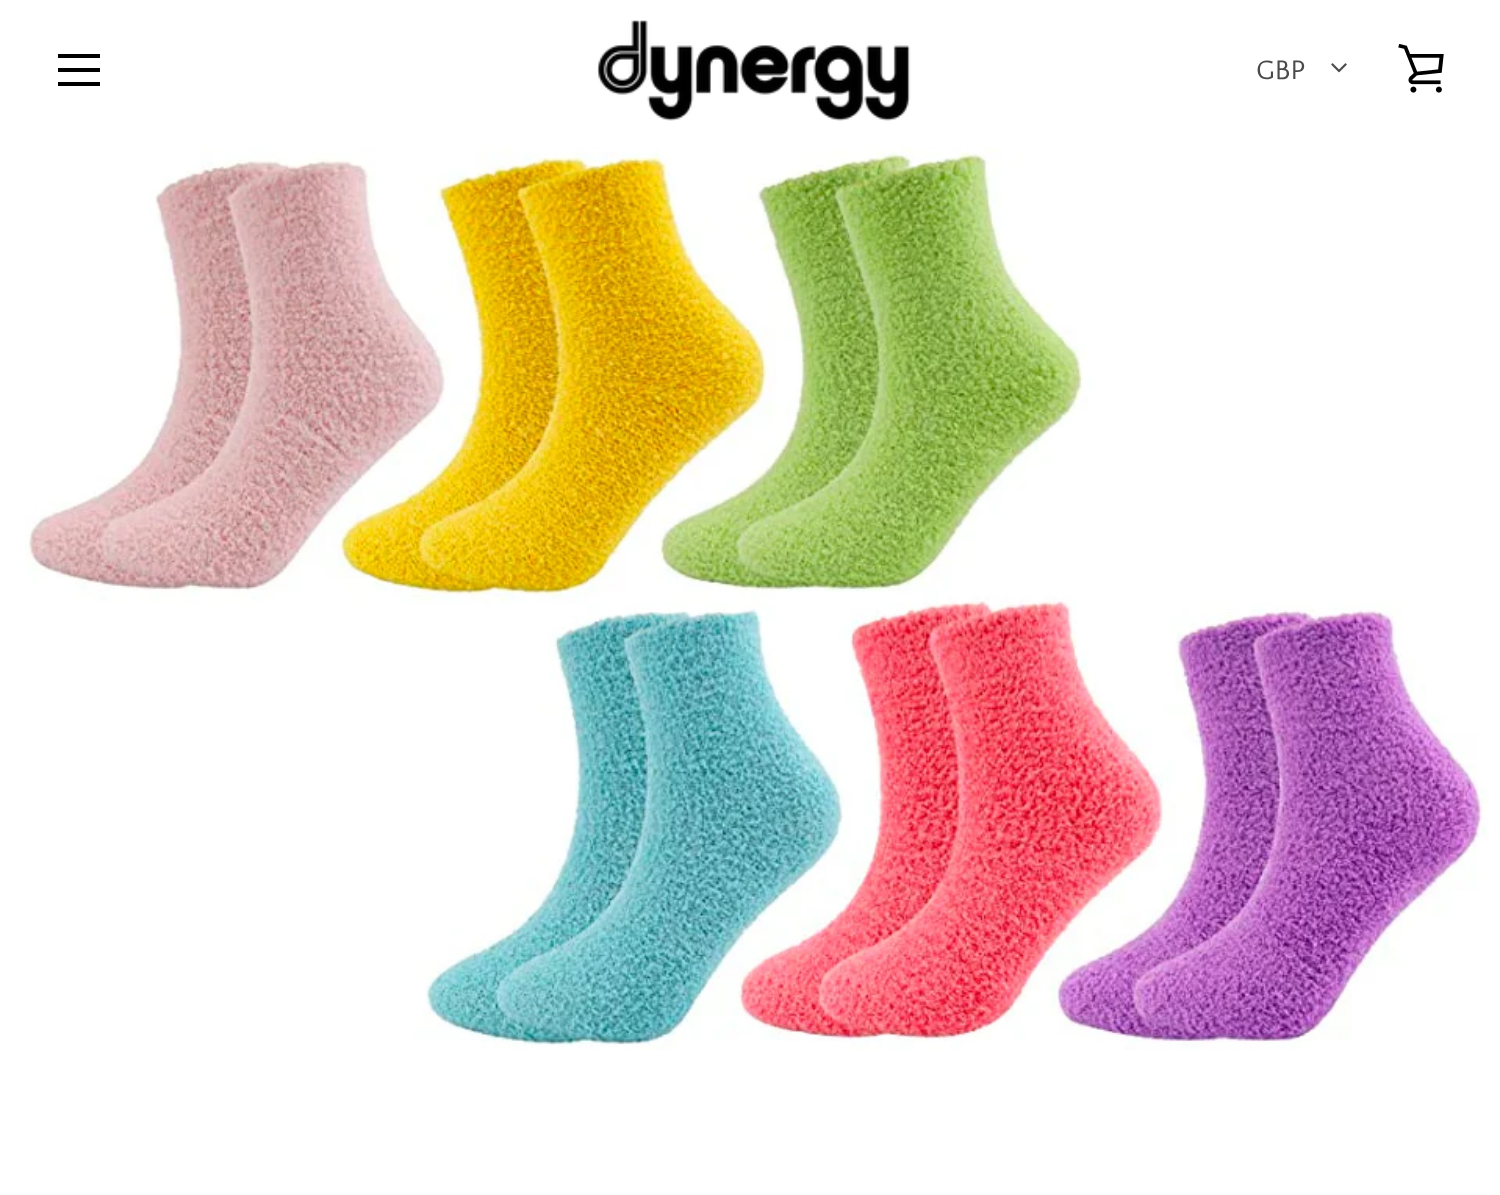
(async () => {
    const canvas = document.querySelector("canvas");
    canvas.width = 1500;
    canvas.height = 1195;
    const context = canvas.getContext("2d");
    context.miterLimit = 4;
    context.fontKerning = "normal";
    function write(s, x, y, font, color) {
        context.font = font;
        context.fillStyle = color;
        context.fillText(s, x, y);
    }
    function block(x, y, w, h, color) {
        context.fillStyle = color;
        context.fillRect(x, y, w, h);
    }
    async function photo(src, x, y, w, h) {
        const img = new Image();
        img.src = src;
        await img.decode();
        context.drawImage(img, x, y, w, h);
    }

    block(0, 0, 1500, 1195, "rgb(255, 255, 255)");
    block(58, 54, 42, 4, "rgb(0, 0, 0)");
    block(58, 68, 42, 4, "rgb(0, 0, 0)");
    block(58, 82, 42, 4, "rgb(0, 0, 0)");
    await photo("media/1.png", 597, 20, 314, 101);
    write("GBP", 1256, 79, "28px Quattrocento Sans", "rgb(74, 74, 74)");
    await photo("media/2.png", 1331, 63, 16, 10);
    await photo("media/3.png", 1398, 44, 46, 49);
    await photo("media/4.png", 25, 147, 1464, 903);
})();
